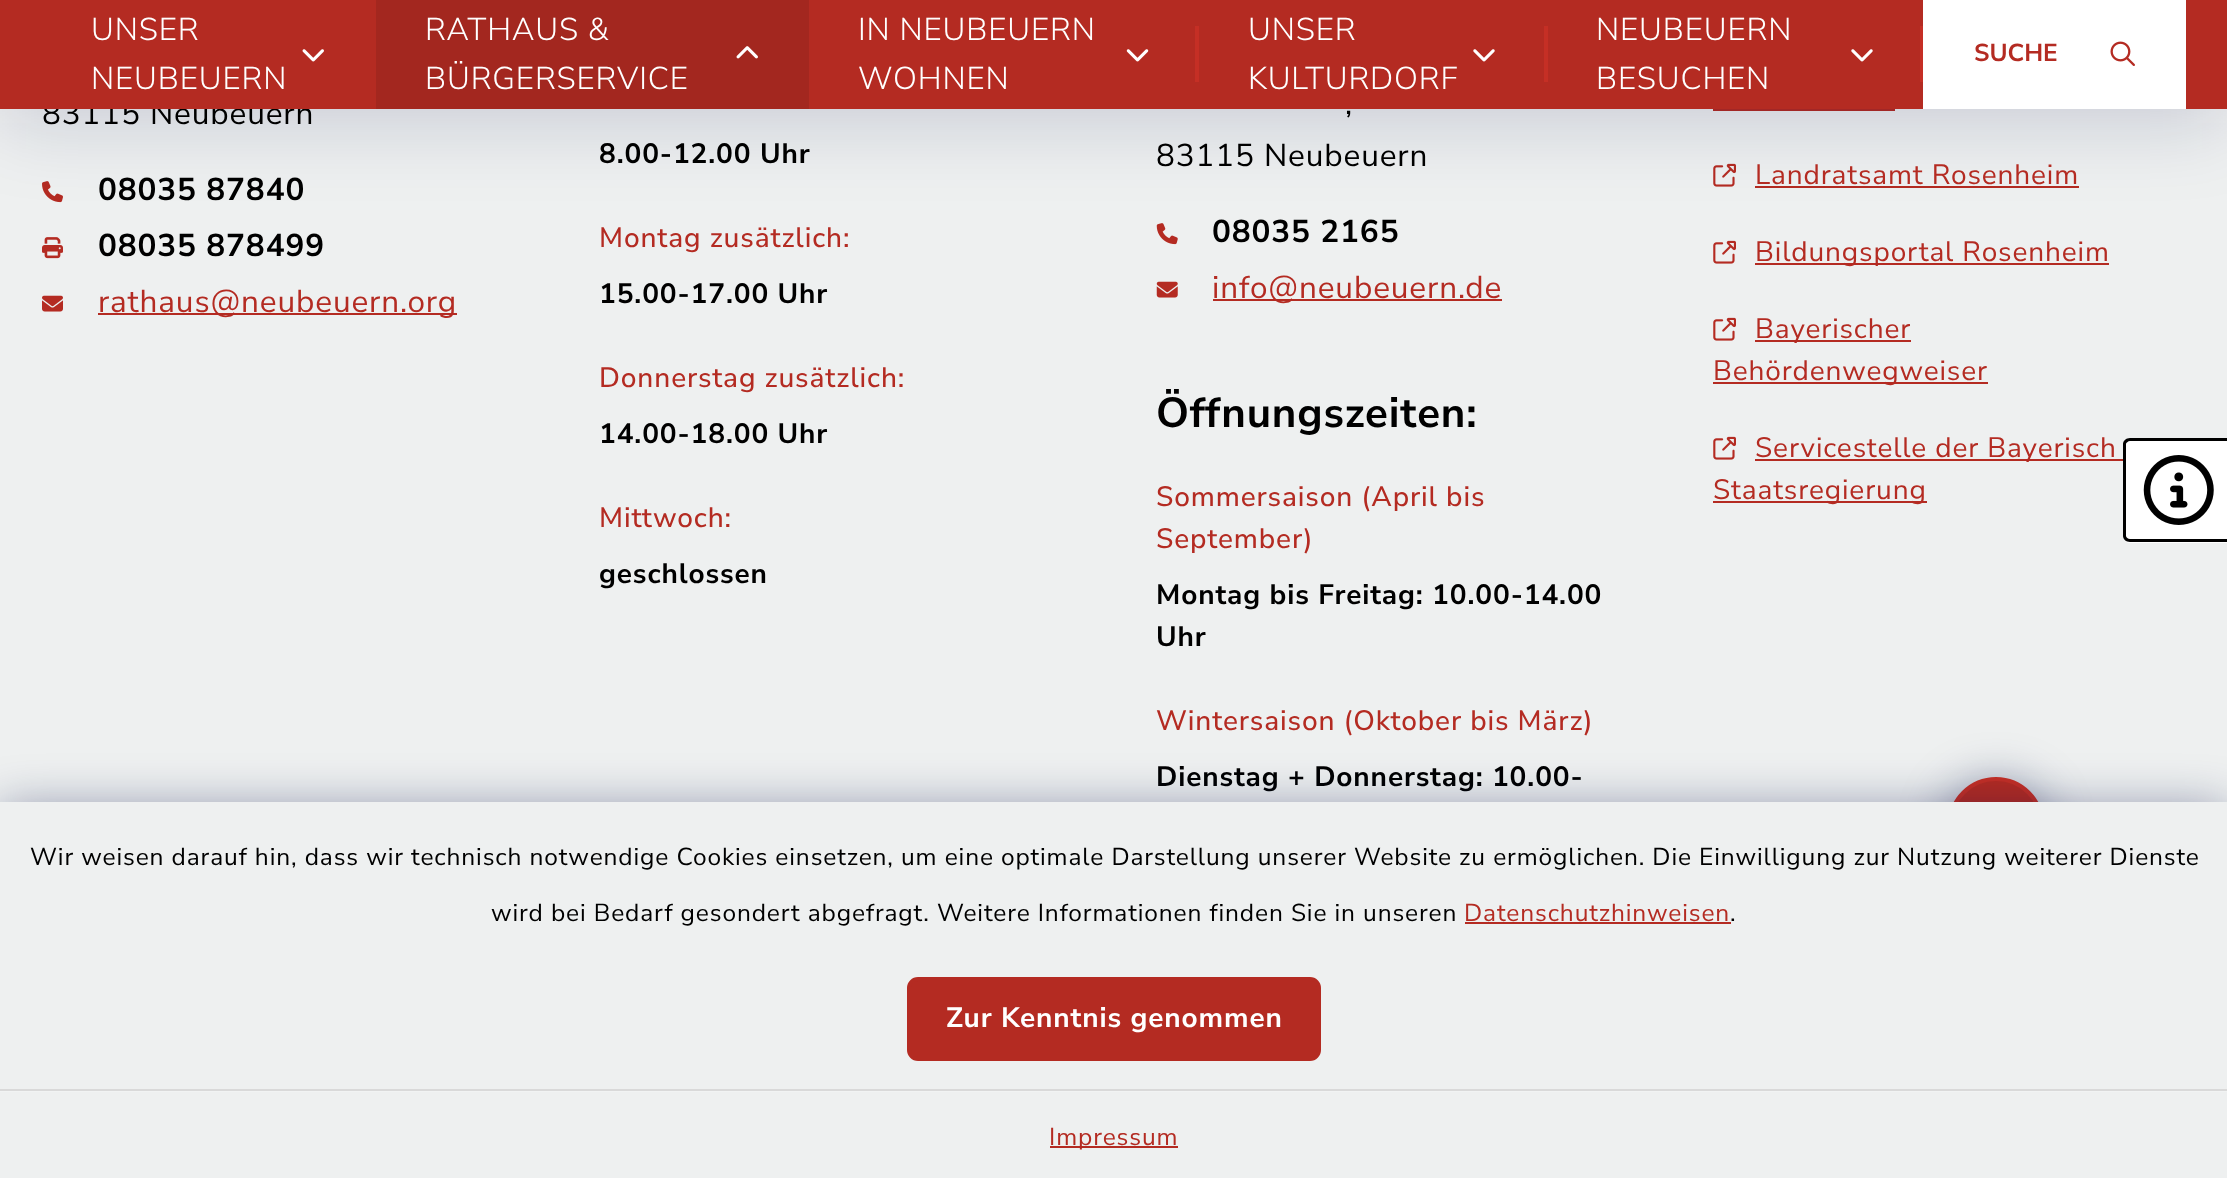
(async () => {
    const canvas = document.querySelector("canvas");
    canvas.width = 2227;
    canvas.height = 1178;
    const context = canvas.getContext("2d");
    context.miterLimit = 4;
    context.fontKerning = "normal";
    function write(s, x, y, font, color) {
        context.font = font;
        context.fillStyle = color;
        context.fillText(s, x, y);
    }
    function block(x, y, w, h, color) {
        context.fillStyle = color;
        context.fillRect(x, y, w, h);
    }
    async function photo(src, x, y, w, h) {
        const img = new Image();
        img.src = src;
        await img.decode();
        context.drawImage(img, x, y, w, h);
    }

    block(0, 0, 2227, 1178, "rgb(238, 240, 240)");
    await photo("media/6.png", 42, 181, 21, 22);
    await photo("media/7.png", 42, 237, 21, 22);
    await photo("media/9.png", 1156, 223, 22, 22);
    block(1713, 109, 182, 2, "rgb(180, 43, 34)");
    await photo("media/11.png", 1713, 163, 23, 24);
    block(1755, 186, 324, 2, "rgb(180, 43, 34)");
    context.fillStyle = "rgba(4, 15, 73, 0.16)";
    context.filter = "blur(38.5px)";
    context.beginPath();
    context.rect(0, 14, 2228, 109);
    context.fill();
    context.filter = "none";
    context.letterSpacing = "0.88px";
    write("83115 Neubeuern", 42, 124, "31.5px Nunito Sans", "rgb(0, 0, 0)");
    block(0, 0, 2227, 109, "rgb(180, 43, 34)");
    write("UNSER", 91, 40, "300 31.5px Nunito Sans", "rgb(255, 255, 255)");
    await photo("media/1.png", 302, 49, 22, 13);
    write("NEUBEUERN", 91, 89, "300 31.5px Nunito Sans", "rgb(255, 255, 255)");
    block(376, 0, 433, 109, "rgb(163, 39, 31)");
    write("RATHAUS &", 425, 40, "300 31.5px Nunito Sans", "rgb(255, 255, 255)");
    await photo("media/2.png", 736, 46, 22, 13);
    write("BÜRGERSERVICE", 425, 89, "300 31.5px Nunito Sans", "rgb(255, 255, 255)");
    write("IN NEUBEUERN", 858, 40, "300 31.5px Nunito Sans", "rgb(255, 255, 255)");
    await photo("media/3.png", 1126, 49, 23, 13);
    write("WOHNEN", 858, 89, "300 31.5px Nunito Sans", "rgb(255, 255, 255)");
    block(1195, 26, 4, 56, "rgb(197, 47, 37)");
    write("UNSER", 1248, 40, "300 31.5px Nunito Sans", "rgb(255, 255, 255)");
    await photo("media/4.png", 1473, 49, 22, 13);
    write("KULTURDORF", 1248, 89, "300 31.5px Nunito Sans", "rgb(255, 255, 255)");
    block(1544, 26, 4, 56, "rgb(197, 47, 37)");
    write("NEUBEUERN", 1596, 40, "300 31.5px Nunito Sans", "rgb(255, 255, 255)");
    await photo("media/4.png", 1851, 49, 22, 13);
    write("BESUCHEN", 1596, 89, "300 31.5px Nunito Sans", "rgb(255, 255, 255)");
    block(1920, 26, 3, 56, "rgb(197, 47, 37)");
    block(1923, 0, 263, 109, "rgb(255, 255, 255)");
    context.letterSpacing = "0px";
    write("SUCHE", 1974, 61, "bold 24.5px Nunito Sans", "rgb(180, 43, 34)");
    await photo("media/5.png", 2110, 41, 25, 25);
    context.letterSpacing = "0.88px";
    write("08035 87840", 98, 200, "bold 31.5px Nunito Sans", "rgb(0, 0, 0)");
    write("08035 878499", 98, 256, "bold 31.5px Nunito Sans", "rgb(0, 0, 0)");
    await photo("media/8.png", 42, 295, 21, 17);
    block(98, 313, 359, 2, "rgb(180, 43, 34)");
    write("rathaus@neubeuern.org", 98, 312, "31.5px Nunito Sans", "rgb(180, 43, 34)");
    write("8.00-12.00 Uhr", 599, 163, "bold 28px Nunito Sans", "rgb(0, 0, 0)");
    write("Montag zusätzlich:", 599, 247, "500 28px Nunito Sans", "rgb(180, 43, 34)");
    write("15.00-17.00 Uhr", 599, 303, "bold 28px Nunito Sans", "rgb(0, 0, 0)");
    write("Donnerstag zusätzlich:", 599, 387, "500 28px Nunito Sans", "rgb(180, 43, 34)");
    write("14.00-18.00 Uhr", 599, 443, "bold 28px Nunito Sans", "rgb(0, 0, 0)");
    write("Mittwoch:", 599, 527, "500 28px Nunito Sans", "rgb(180, 43, 34)");
    write("geschlossen", 599, 583, "bold 28px Nunito Sans", "rgb(0, 0, 0)");
    write(",", 1345, 114, "31.5px Nunito Sans", "rgb(0, 0, 0)");
    write("83115 Neubeuern", 1156, 166, "31.5px Nunito Sans", "rgb(0, 0, 0)");
    write("08035 2165", 1212, 242, "bold 31.5px Nunito Sans", "rgb(0, 0, 0)");
    await photo("media/10.png", 1156, 281, 22, 17);
    block(1213, 299, 289, 2, "rgb(180, 43, 34)");
    write("info@neubeuern.de", 1212, 298, "31.5px Nunito Sans", "rgb(180, 43, 34)");
    write("Öffnungszeiten:", 1156, 427, "bold 42px Nunito Sans", "rgb(0, 0, 0)");
    write("Sommersaison (April bis", 1156, 506, "500 28px Nunito Sans", "rgb(180, 43, 34)");
    write("September)", 1156, 548, "500 28px Nunito Sans", "rgb(180, 43, 34)");
    write("Montag bis Freitag: 10.00-14.00", 1156, 604, "bold 28px Nunito Sans", "rgb(0, 0, 0)");
    write("Uhr", 1156, 646, "bold 28px Nunito Sans", "rgb(0, 0, 0)");
    write("Wintersaison (Oktober bis März)", 1156, 730, "500 28px Nunito Sans", "rgb(180, 43, 34)");
    write("Dienstag + Donnerstag: 10.00-", 1156, 786, "bold 28px Nunito Sans", "rgb(0, 0, 0)");
    write("Landratsamt Rosenheim", 1755, 184, "28px Nunito Sans", "rgb(180, 43, 34)");
    await photo("media/11.png", 1713, 240, 23, 24);
    block(1755, 263, 354, 2, "rgb(180, 43, 34)");
    write("Bildungsportal Rosenheim", 1755, 261, "28px Nunito Sans", "rgb(180, 43, 34)");
    await photo("media/11.png", 1713, 317, 23, 24);
    block(1755, 340, 156, 2, "rgb(180, 43, 34)");
    write("Bayerischer", 1755, 338, "28px Nunito Sans", "rgb(180, 43, 34)");
    block(1713, 382, 275, 2, "rgb(180, 43, 34)");
    write("Behördenwegweiser", 1713, 380, "28px Nunito Sans", "rgb(180, 43, 34)");
    await photo("media/11.png", 1713, 436, 23, 24);
    block(1755, 459, 368, 2, "rgb(180, 43, 34)");
    write("Servicestelle der Bayerisch", 1755, 457, "28px Nunito Sans", "rgb(180, 43, 34)");
    block(1713, 501, 214, 2, "rgb(180, 43, 34)");
    write("Staatsregierung", 1713, 499, "28px Nunito Sans", "rgb(180, 43, 34)");
    context.fillStyle = "rgb(255, 255, 255)";
    context.beginPath();
    context.moveTo(2130, 438);
    context.lineTo(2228, 438);
    context.lineTo(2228, 543);
    context.lineTo(2130, 543);
    context.bezierCurveTo(2126, 543, 2123, 540, 2123, 536);
    context.lineTo(2123, 445);
    context.bezierCurveTo(2123, 441, 2126, 438, 2130, 438);
    context.closePath();
    context.fill();
    context.fillStyle = "rgb(0, 0, 0)";
    context.beginPath();
    context.moveTo(2130, 438);
    context.lineTo(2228, 438);
    context.lineTo(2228, 542);
    context.lineTo(2130, 542);
    context.bezierCurveTo(2126, 542, 2123, 539, 2123, 536);
    context.lineTo(2123, 444);
    context.bezierCurveTo(2123, 441, 2126, 438, 2130, 438);
    context.closePath();
    context.moveTo(2130, 441);
    context.lineTo(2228, 441);
    context.lineTo(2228, 539);
    context.lineTo(2130, 539);
    context.bezierCurveTo(2128, 539, 2126, 537, 2126, 536);
    context.lineTo(2126, 444);
    context.bezierCurveTo(2126, 443, 2128, 441, 2130, 441);
    context.closePath();
    context.fill("evenodd");
    await photo("media/12.png", 2143, 455, 71, 70);
    context.fillStyle = "rgba(4, 15, 73, 0.44)";
    context.filter = "blur(24.5px)";
    context.beginPath();
    context.roundRect(1948, 784, 96, 96, 48);
    context.fill();
    context.filter = "none";
    context.fillStyle = "rgb(180, 43, 34)";
    context.beginPath();
    context.arc(1996, 825, 46, 0, Math.PI * 2);
    context.fill();
    context.strokeStyle = "rgb(197, 47, 37)";
    context.lineWidth = 4;
    context.stroke();
    context.fillStyle = "rgba(4, 15, 73, 0.44)";
    context.filter = "blur(24.5px)";
    context.beginPath();
    context.rect(0, 809, 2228, 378);
    context.fill();
    context.filter = "none";
    block(0, 802, 2227, 376, "rgb(238, 240, 240)");
    block(0, 1089, 2227, 2, "rgb(217, 217, 217)");
    write("Wir weisen darauf hin, dass wir technisch notwendige Cookies einsetzen, um eine optimale Darstellung unserer Website zu ermöglichen. Die Einwilligung zur Nutzung weiterer Dienste", 30, 865, "24.5px Nunito Sans", "rgb(0, 0, 0)");
    write("wird bei Bedarf gesondert abgefragt. Weitere Informationen finden Sie in unseren", 491, 921, "24.5px Nunito Sans", "rgb(0, 0, 0)");
    write("Datenschutzhinweisen", 1464, 921, "24.5px Nunito Sans", "rgb(180, 43, 34)");
    block(1465, 922, 266, 2, "rgb(180, 43, 34)");
    write(".", 1730, 921, "24.5px Nunito Sans", "rgb(0, 0, 0)");
    context.fillStyle = "rgb(180, 43, 34)";
    context.beginPath();
    context.roundRect(909, 979, 410, 80, 9);
    context.fill();
    context.strokeStyle = "rgb(180, 43, 34)";
    context.stroke();
    write("Zur Kenntnis genommen", 946, 1027, "bold 28px Nunito Sans", "rgb(255, 255, 255)");
    block(0, 1091, 2227, 1, "rgb(241, 243, 243)");
    block(1050, 1146, 128, 2, "rgb(180, 43, 34)");
    write("Impressum", 1049, 1145, "24.5px Nunito Sans", "rgb(180, 43, 34)");
})();
